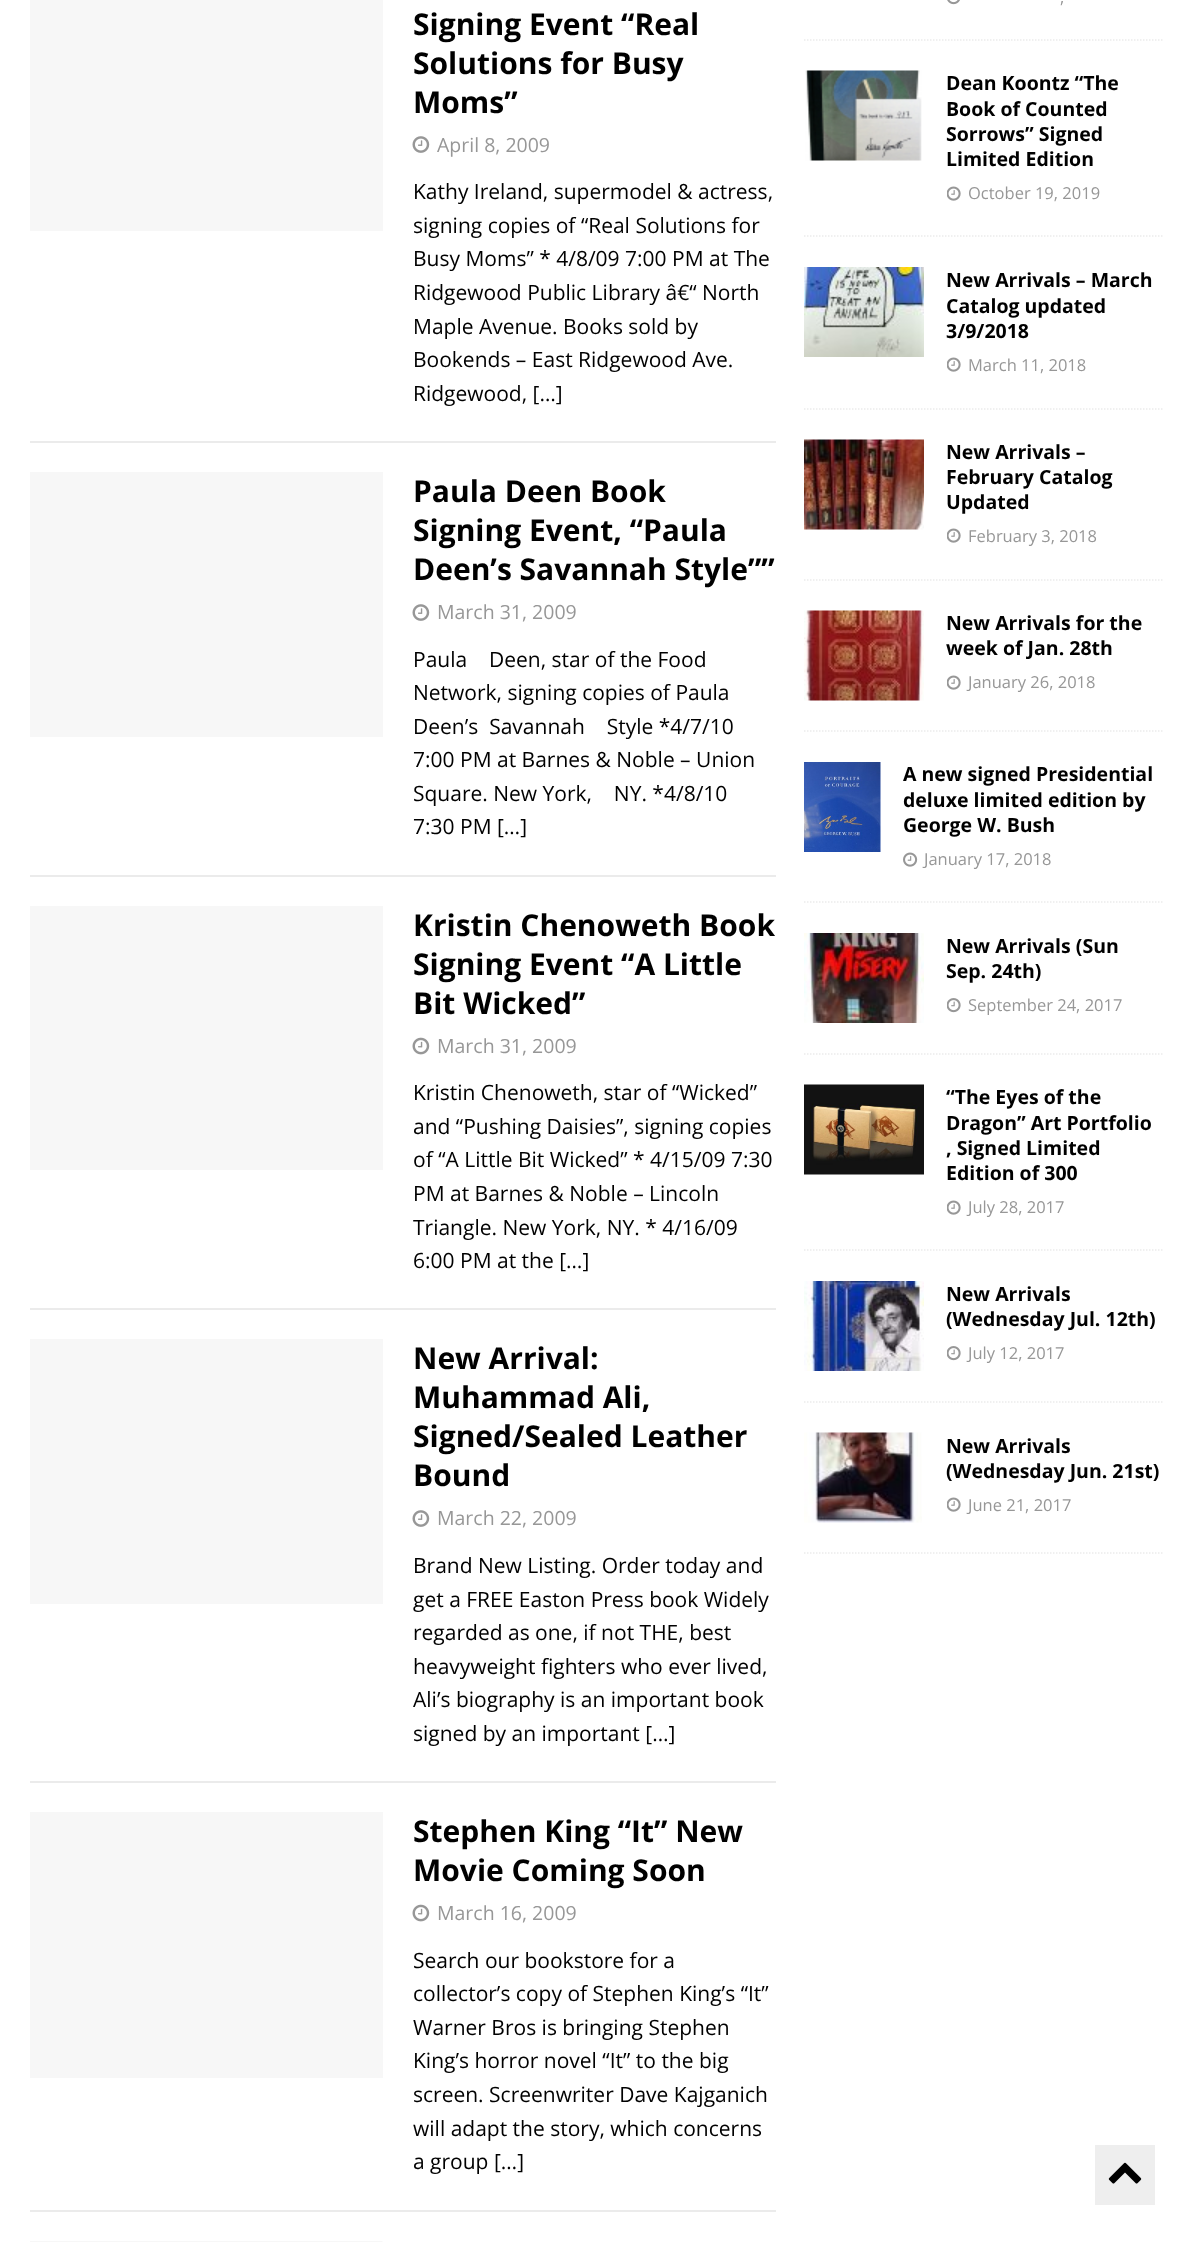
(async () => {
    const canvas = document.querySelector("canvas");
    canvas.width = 1192;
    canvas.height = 2242;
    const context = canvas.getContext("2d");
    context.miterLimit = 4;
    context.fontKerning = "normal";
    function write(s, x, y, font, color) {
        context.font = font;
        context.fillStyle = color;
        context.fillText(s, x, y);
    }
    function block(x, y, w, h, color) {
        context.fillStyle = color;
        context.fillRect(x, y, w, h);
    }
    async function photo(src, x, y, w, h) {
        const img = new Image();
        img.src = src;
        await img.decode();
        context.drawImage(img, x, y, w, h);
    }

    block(0, 0, 1192, 2242, "rgb(255, 255, 255)");
    block(30, 441, 746, 2, "rgb(235, 235, 235)");
    block(30, 0, 353, 231, "rgb(247, 247, 247)");
    write("Signing Event “Real", 413, 35, "bold 30px Open Sans", "rgb(0, 0, 0)");
    write("Solutions for Busy", 413, 74, "bold 30px Open Sans", "rgb(0, 0, 0)");
    write("Moms”", 413, 113, "bold 30px Open Sans", "rgb(0, 0, 0)");
    await photo("media/1.png", 412, 136, 18, 17);
    write("April 8, 2009", 437, 152, "19.5px Open Sans", "rgb(151, 151, 151)");
    write("Kathy Ireland, supermodel & actress,", 413, 199, "21px Open Sans", "rgb(0, 0, 0)");
    write("signing copies of “Real Solutions for", 413, 233, "21px Open Sans", "rgb(0, 0, 0)");
    write("Busy Moms” * 4/8/09 7:00 PM at The", 413, 266, "21px Open Sans", "rgb(0, 0, 0)");
    write("Ridgewood Public Library â€“ North", 413, 300, "21px Open Sans", "rgb(0, 0, 0)");
    write("Maple Avenue. Books sold by", 413, 334, "21px Open Sans", "rgb(0, 0, 0)");
    write("Bookends – East Ridgewood Ave.", 413, 367, "21px Open Sans", "rgb(0, 0, 0)");
    write("Ridgewood, […]", 413, 401, "21px Open Sans", "rgb(0, 0, 0)");
    block(30, 875, 746, 2, "rgb(235, 235, 235)");
    block(30, 472, 353, 265, "rgb(247, 247, 247)");
    write("Paula Deen Book", 413, 502, "bold 30px Open Sans", "rgb(0, 0, 0)");
    write("Signing Event, “Paula", 413, 541, "bold 30px Open Sans", "rgb(0, 0, 0)");
    write("Deen’s Savannah Style””", 413, 580, "bold 30px Open Sans", "rgb(0, 0, 0)");
    await photo("media/1.png", 412, 604, 18, 17);
    write("March 31, 2009", 437, 619, "19.5px Open Sans", "rgb(151, 151, 151)");
    write("Paula    Deen, star of the Food", 413, 667, "21px Open Sans", "rgb(0, 0, 0)");
    write("Network, signing copies of Paula", 413, 700, "21px Open Sans", "rgb(0, 0, 0)");
    write("Deen’s  Savannah    Style *4/7/10", 413, 734, "21px Open Sans", "rgb(0, 0, 0)");
    write("7:00 PM at Barnes & Noble – Union", 413, 767, "21px Open Sans", "rgb(0, 0, 0)");
    write("Square. New York,    NY. *4/8/10", 413, 801, "21px Open Sans", "rgb(0, 0, 0)");
    write("7:30 PM […]", 413, 834, "21px Open Sans", "rgb(0, 0, 0)");
    block(30, 1308, 746, 2, "rgb(235, 235, 235)");
    block(30, 906, 353, 264, "rgb(247, 247, 247)");
    write("Kristin Chenoweth Book", 413, 936, "bold 30px Open Sans", "rgb(0, 0, 0)");
    write("Signing Event “A Little", 413, 975, "bold 30px Open Sans", "rgb(0, 0, 0)");
    write("Bit Wicked”", 413, 1014, "bold 30px Open Sans", "rgb(0, 0, 0)");
    await photo("media/2.png", 412, 1037, 18, 18);
    write("March 31, 2009", 437, 1053, "19.5px Open Sans", "rgb(151, 151, 151)");
    write("Kristin Chenoweth, star of “Wicked”", 413, 1100, "21px Open Sans", "rgb(0, 0, 0)");
    write("and “Pushing Daisies”, signing copies", 413, 1134, "21px Open Sans", "rgb(0, 0, 0)");
    write("of “A Little Bit Wicked” * 4/15/09 7:30", 413, 1167, "21px Open Sans", "rgb(0, 0, 0)");
    write("PM at Barnes & Noble – Lincoln", 413, 1201, "21px Open Sans", "rgb(0, 0, 0)");
    write("Triangle. New York, NY. * 4/16/09", 413, 1235, "21px Open Sans", "rgb(0, 0, 0)");
    write("6:00 PM at the […]", 413, 1268, "21px Open Sans", "rgb(0, 0, 0)");
    block(30, 1781, 746, 2, "rgb(235, 235, 235)");
    block(30, 1339, 353, 265, "rgb(247, 247, 247)");
    write("New Arrival:", 413, 1369, "bold 30px Open Sans", "rgb(0, 0, 0)");
    write("Muhammad Ali,", 413, 1408, "bold 30px Open Sans", "rgb(0, 0, 0)");
    write("Signed/Sealed Leather", 413, 1447, "bold 30px Open Sans", "rgb(0, 0, 0)");
    write("Bound", 413, 1486, "bold 30px Open Sans", "rgb(0, 0, 0)");
    await photo("media/1.png", 412, 1510, 18, 17);
    write("March 22, 2009", 437, 1525, "19.5px Open Sans", "rgb(151, 151, 151)");
    write("Brand New Listing. Order today and", 413, 1573, "21px Open Sans", "rgb(0, 0, 0)");
    write("get a FREE Easton Press book Widely", 413, 1607, "21px Open Sans", "rgb(0, 0, 0)");
    write("regarded as one, if not THE, best", 413, 1640, "21px Open Sans", "rgb(0, 0, 0)");
    write("heavyweight fighters who ever lived,", 413, 1674, "21px Open Sans", "rgb(0, 0, 0)");
    write("Ali’s biography is an important book", 413, 1707, "21px Open Sans", "rgb(0, 0, 0)");
    write("signed by an important […]", 413, 1741, "21px Open Sans", "rgb(0, 0, 0)");
    block(30, 2210, 746, 2, "rgb(235, 235, 235)");
    block(30, 1812, 353, 266, "rgb(247, 247, 247)");
    write("Stephen King “It” New", 413, 1842, "bold 30px Open Sans", "rgb(0, 0, 0)");
    write("Movie Coming Soon", 413, 1881, "bold 30px Open Sans", "rgb(0, 0, 0)");
    await photo("media/2.png", 412, 1904, 18, 18);
    write("March 16, 2009", 437, 1920, "19.5px Open Sans", "rgb(151, 151, 151)");
    write("Search our bookstore for a", 413, 1968, "21px Open Sans", "rgb(0, 0, 0)");
    write("collector’s copy of Stephen King’s “It”", 413, 2001, "21px Open Sans", "rgb(0, 0, 0)");
    write("Warner Bros is bringing Stephen", 413, 2035, "21px Open Sans", "rgb(0, 0, 0)");
    write("King’s horror novel “It” to the big", 413, 2068, "21px Open Sans", "rgb(0, 0, 0)");
    write("screen. Screenwriter Dave Kajganich", 413, 2102, "21px Open Sans", "rgb(0, 0, 0)");
    write("will adapt the story, which concerns", 413, 2136, "21px Open Sans", "rgb(0, 0, 0)");
    write("a group […]", 413, 2169, "21px Open Sans", "rgb(0, 0, 0)");
    await photo("media/3.png", 30, 2241, 353, 1);
    context.beginPath();
    context.moveTo(804, 40);
    context.lineTo(1162.5, 40);
    context.strokeStyle = "rgb(235, 235, 235)";
    context.lineWidth = 1.5;
    context.setLineDash([1.5, 1.5]);
    context.stroke();
    await photo("media/4.png", 947, 0, 13, 5);
    write(",", 1060, 3, "16.5px Open Sans", "rgb(151, 151, 151)");
    context.beginPath();
    context.moveTo(804, 236);
    context.lineTo(1162.5, 236);
    context.stroke();
    await photo("media/5.png", 805, 70, 117, 91);
    write("Dean Koontz “The", 946, 90, "bold 19.5px Open Sans", "rgb(0, 0, 0)");
    write("Book of Counted", 946, 116, "bold 19.5px Open Sans", "rgb(0, 0, 0)");
    write("Sorrows” Signed", 946, 141, "bold 19.5px Open Sans", "rgb(0, 0, 0)");
    write("Limited Edition", 946, 166, "bold 19.5px Open Sans", "rgb(0, 0, 0)");
    await photo("media/6.png", 947, 186, 14, 15);
    write("October 19, 2019", 968, 199, "16.5px Open Sans", "rgb(151, 151, 151)");
    context.beginPath();
    context.moveTo(804, 409);
    context.lineTo(1162.5, 409);
    context.stroke();
    await photo("media/7.png", 804, 267, 120, 90);
    write("New Arrivals – March", 946, 287, "bold 19.5px Open Sans", "rgb(0, 0, 0)");
    write("Catalog updated", 946, 313, "bold 19.5px Open Sans", "rgb(0, 0, 0)");
    write("3/9/2018", 946, 338, "bold 19.5px Open Sans", "rgb(0, 0, 0)");
    await photo("media/6.png", 947, 357, 14, 15);
    write("March 11, 2018", 968, 371, "16.5px Open Sans", "rgb(151, 151, 151)");
    context.beginPath();
    context.moveTo(804, 580);
    context.lineTo(1162.5, 580);
    context.stroke();
    await photo("media/8.png", 804, 439, 120, 91);
    write("New Arrivals –", 946, 459, "bold 19.5px Open Sans", "rgb(0, 0, 0)");
    write("February Catalog", 946, 484, "bold 19.5px Open Sans", "rgb(0, 0, 0)");
    write("Updated", 946, 509, "bold 19.5px Open Sans", "rgb(0, 0, 0)");
    await photo("media/6.png", 947, 528, 14, 15);
    write("February 3, 2018", 968, 542, "16.5px Open Sans", "rgb(151, 151, 151)");
    context.beginPath();
    context.moveTo(804, 731);
    context.lineTo(1162.5, 731);
    context.stroke();
    await photo("media/9.png", 804, 610, 120, 91);
    write("New Arrivals for the", 946, 630, "bold 19.5px Open Sans", "rgb(0, 0, 0)");
    write("week of Jan. 28th", 946, 655, "bold 19.5px Open Sans", "rgb(0, 0, 0)");
    await photo("media/6.png", 947, 675, 14, 15);
    write("January 26, 2018", 968, 688, "16.5px Open Sans", "rgb(151, 151, 151)");
    context.beginPath();
    context.moveTo(804, 902);
    context.lineTo(1162.5, 902);
    context.stroke();
    await photo("media/10.png", 804, 762, 77, 90);
    write("A new signed Presidential", 903, 781, "bold 19.5px Open Sans", "rgb(0, 0, 0)");
    write("deluxe limited edition by", 903, 807, "bold 19.5px Open Sans", "rgb(0, 0, 0)");
    write("George W. Bush", 903, 832, "bold 19.5px Open Sans", "rgb(0, 0, 0)");
    await photo("media/11.png", 903, 852, 15, 15);
    write("January 17, 2018", 924, 865, "16.5px Open Sans", "rgb(151, 151, 151)");
    context.beginPath();
    context.moveTo(804, 1054);
    context.lineTo(1162.5, 1054);
    context.stroke();
    await photo("media/12.png", 804, 933, 120, 90);
    write("New Arrivals (Sun", 946, 953, "bold 19.5px Open Sans", "rgb(0, 0, 0)");
    write("Sep. 24th)", 946, 978, "bold 19.5px Open Sans", "rgb(0, 0, 0)");
    await photo("media/13.png", 947, 998, 14, 15);
    write("September 24, 2017", 968, 1011, "16.5px Open Sans", "rgb(151, 151, 151)");
    context.beginPath();
    context.moveTo(804, 1250);
    context.lineTo(1162.5, 1250);
    context.stroke();
    await photo("media/14.png", 804, 1084, 120, 91);
    write("“The Eyes of the", 946, 1104, "bold 19.5px Open Sans", "rgb(0, 0, 0)");
    write("Dragon” Art Portfolio", 946, 1130, "bold 19.5px Open Sans", "rgb(0, 0, 0)");
    write(", Signed Limited", 946, 1155, "bold 19.5px Open Sans", "rgb(0, 0, 0)");
    write("Edition of 300", 946, 1180, "bold 19.5px Open Sans", "rgb(0, 0, 0)");
    await photo("media/6.png", 947, 1200, 14, 15);
    write("July 28, 2017", 968, 1213, "16.5px Open Sans", "rgb(151, 151, 151)");
    context.beginPath();
    context.moveTo(804, 1402);
    context.lineTo(1162.5, 1402);
    context.stroke();
    await photo("media/15.png", 804, 1281, 120, 90);
    write("New Arrivals", 946, 1301, "bold 19.5px Open Sans", "rgb(0, 0, 0)");
    write("(Wednesday Jul. 12th)", 946, 1326, "bold 19.5px Open Sans", "rgb(0, 0, 0)");
    await photo("media/13.png", 947, 1346, 14, 15);
    write("July 12, 2017", 968, 1359, "16.5px Open Sans", "rgb(151, 151, 151)");
    context.beginPath();
    context.moveTo(804, 1553);
    context.lineTo(1162.5, 1553);
    context.stroke();
    await photo("media/16.png", 804, 1432, 118, 91);
    write("New Arrivals", 946, 1453, "bold 19.5px Open Sans", "rgb(0, 0, 0)");
    write("(Wednesday Jun. 21st)", 946, 1478, "bold 19.5px Open Sans", "rgb(0, 0, 0)");
    await photo("media/6.png", 947, 1497, 14, 15);
    write("June 21, 2017", 968, 1511, "16.5px Open Sans", "rgb(151, 151, 151)");
    block(1095, 2145, 60, 60, "rgb(238, 238, 238)");
    await photo("media/17.png", 1108, 2162, 34, 22);
})();
